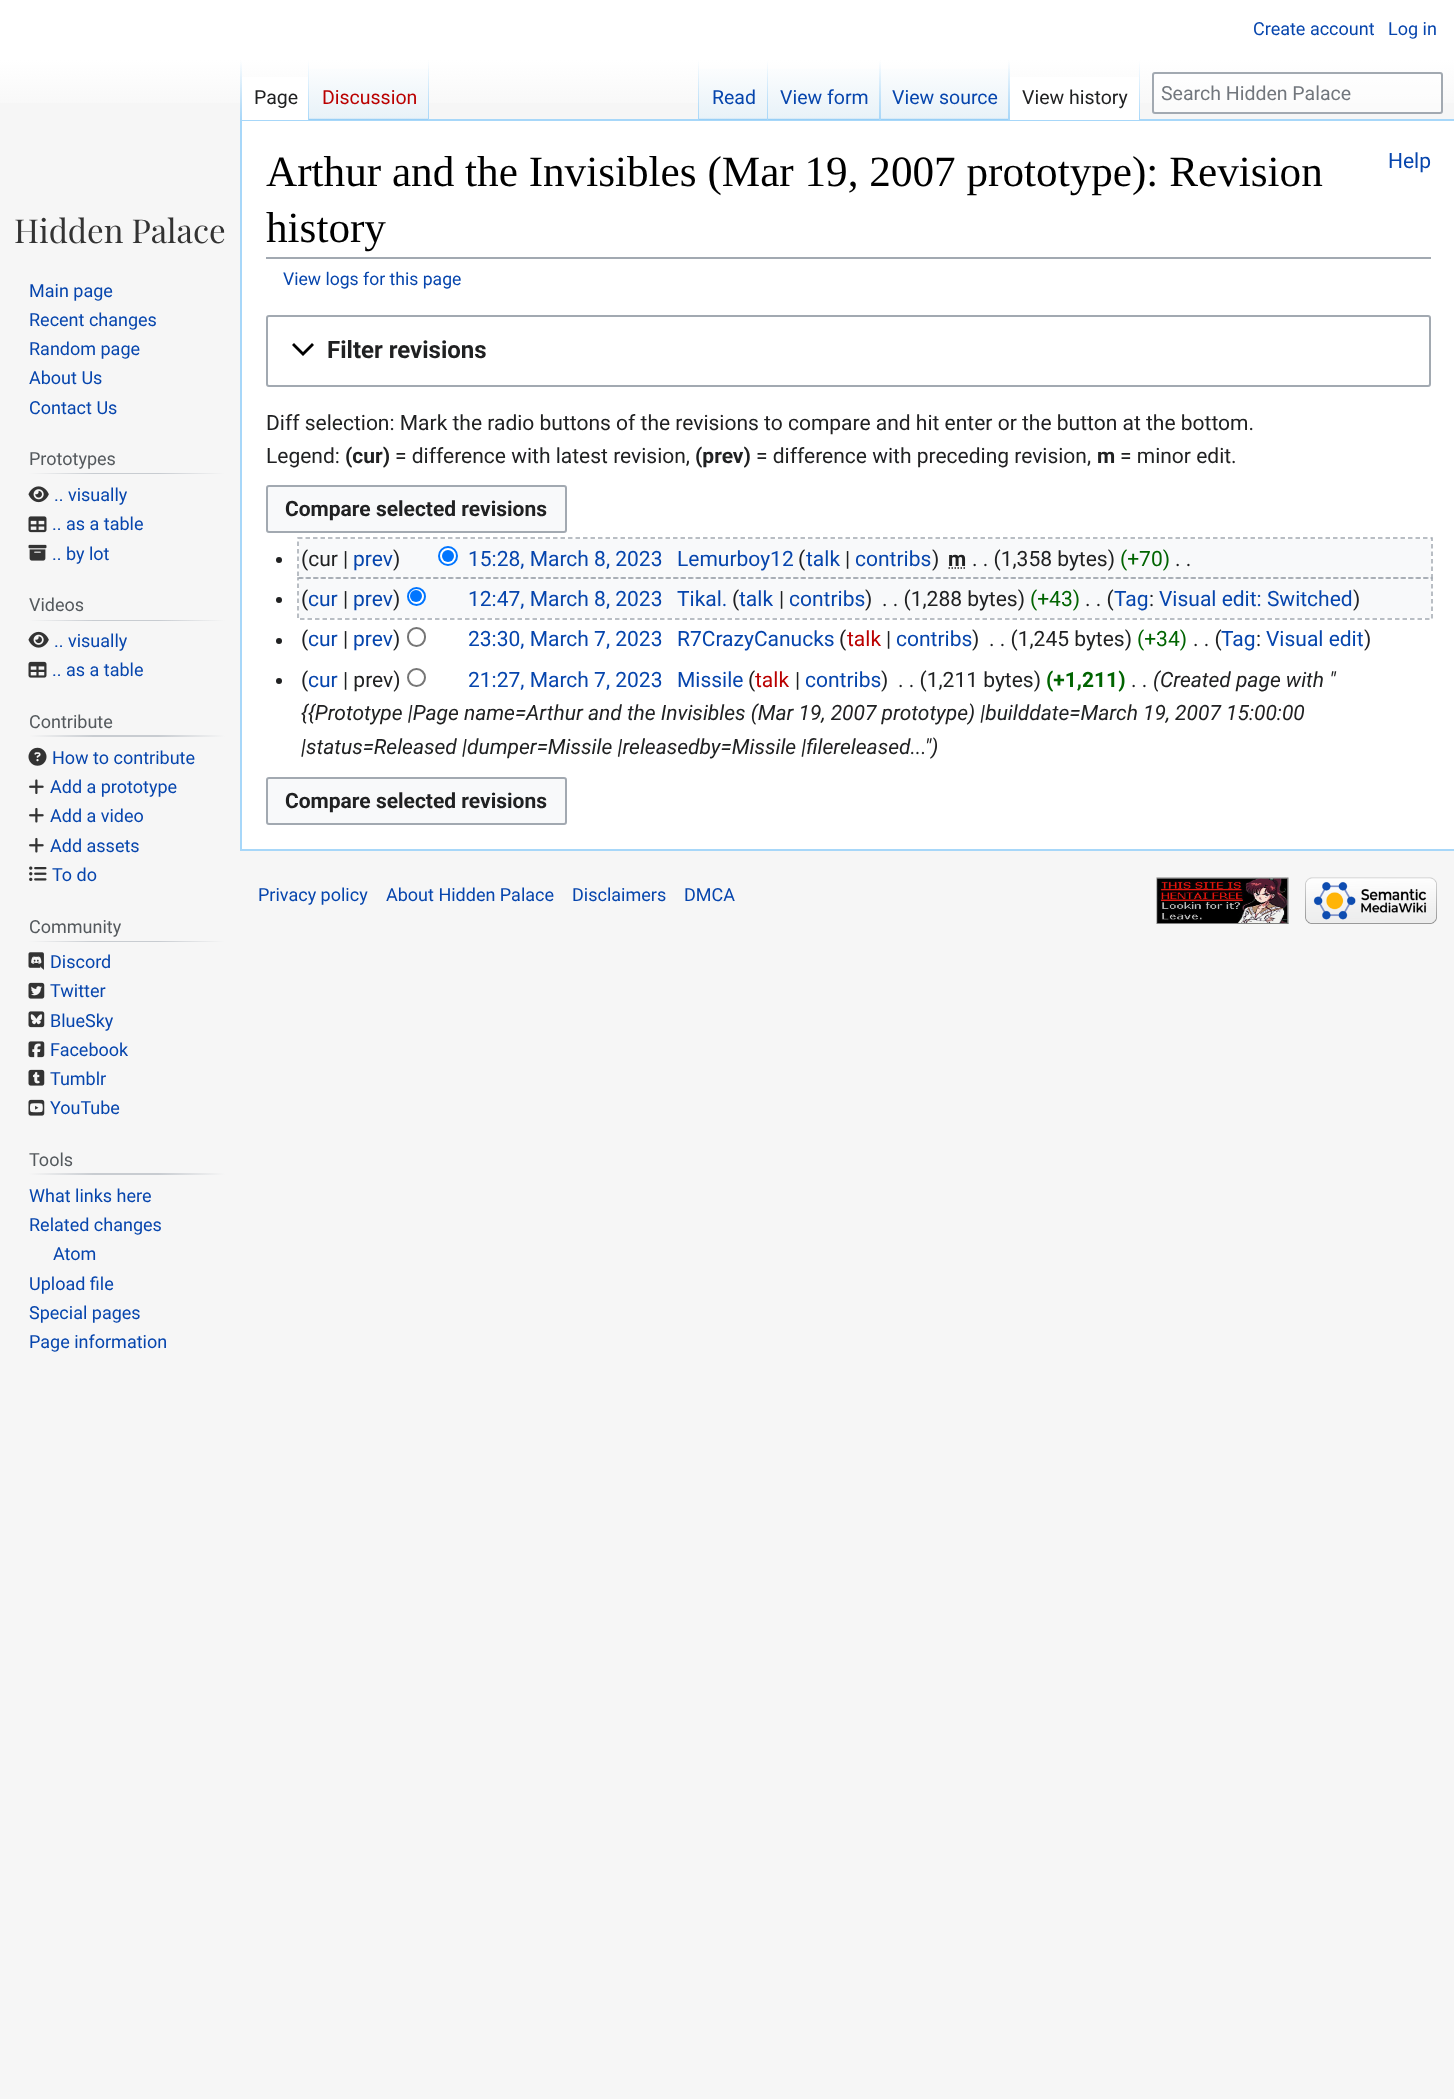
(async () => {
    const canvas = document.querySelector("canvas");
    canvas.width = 1454;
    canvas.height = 2099;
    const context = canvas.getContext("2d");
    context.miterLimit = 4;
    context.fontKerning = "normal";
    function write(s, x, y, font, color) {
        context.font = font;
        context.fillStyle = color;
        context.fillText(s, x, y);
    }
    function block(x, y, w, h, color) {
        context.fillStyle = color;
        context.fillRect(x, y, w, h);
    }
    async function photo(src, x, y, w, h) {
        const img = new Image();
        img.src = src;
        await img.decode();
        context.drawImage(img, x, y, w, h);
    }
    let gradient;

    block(0, 0, 1454, 2099, "rgb(246, 246, 246)");
    gradient = context.createLinearGradient(728, 0, 728, 120);
    gradient.addColorStop(0.5, "rgb(255, 255, 255)");
    gradient.addColorStop(1, "rgb(246, 246, 246)");
    context.fillStyle = gradient;
    context.fillRect(0, 0, 1454, 103);
    write("Create account", 1253, 35, "18px Roboto", "rgb(6, 69, 173)");
    write("Log in", 1388, 35, "18px Roboto", "rgb(6, 69, 173)");
    block(240, 119, 1214, 2, "rgb(167, 215, 249)");
    block(240, 849, 1214, 2, "rgb(167, 215, 249)");
    block(240, 119, 2, 732, "rgb(167, 215, 249)");
    gradient = context.createLinearGradient(241, 60, 241, 120);
    gradient.addColorStop(0, "rgba(167, 215, 249, 0)");
    gradient.addColorStop(1, "rgb(167, 215, 249)");
    context.fillStyle = gradient;
    context.fillRect(240, 60, 2, 60);
    block(242, 77, 66, 43, "rgb(255, 255, 255)");
    gradient = context.createLinearGradient(308, 60, 308, 120);
    gradient.addColorStop(0, "rgb(255, 255, 255)");
    gradient.addColorStop(1, "rgb(167, 215, 249)");
    context.fillStyle = gradient;
    context.fillRect(308, 60, 1, 60);
    write("Page", 254, 104, "19.5px Roboto", "rgb(32, 33, 34)");
    gradient = context.createLinearGradient(369, 120, 369, 60);
    gradient.addColorStop(0, "rgb(119, 193, 246)");
    gradient.addColorStop(0.03, "rgb(232, 242, 248)");
    gradient.addColorStop(1, "rgb(255, 255, 255)");
    context.fillStyle = gradient;
    context.fillRect(309, 69, 120, 51);
    gradient = context.createLinearGradient(428, 60, 428, 120);
    gradient.addColorStop(0, "rgba(167, 215, 249, 0)");
    gradient.addColorStop(1, "rgb(167, 215, 249)");
    context.fillStyle = gradient;
    context.fillRect(428, 60, 1, 60);
    write("Discussion", 322, 104, "19.5px Roboto", "rgb(186, 0, 0)");
    gradient = context.createLinearGradient(698, 60, 698, 120);
    gradient.addColorStop(0, "rgba(167, 215, 249, 0)");
    gradient.addColorStop(1, "rgb(167, 215, 249)");
    context.fillStyle = gradient;
    context.fillRect(698, 60, 1, 60);
    gradient = context.createLinearGradient(734, 120, 734, 60);
    gradient.addColorStop(0, "rgb(119, 193, 246)");
    gradient.addColorStop(0.03, "rgb(232, 242, 248)");
    gradient.addColorStop(1, "rgb(255, 255, 255)");
    context.fillStyle = gradient;
    context.fillRect(699, 69, 69, 51);
    gradient = context.createLinearGradient(767, 60, 767, 120);
    gradient.addColorStop(0, "rgba(167, 215, 249, 0)");
    gradient.addColorStop(1, "rgb(167, 215, 249)");
    context.fillStyle = gradient;
    context.fillRect(767, 60, 1, 60);
    write("Read", 712, 104, "19.5px Roboto", "rgb(6, 69, 173)");
    gradient = context.createLinearGradient(824, 120, 824, 60);
    gradient.addColorStop(0, "rgb(119, 193, 246)");
    gradient.addColorStop(0.03, "rgb(232, 242, 248)");
    gradient.addColorStop(1, "rgb(255, 255, 255)");
    context.fillStyle = gradient;
    context.fillRect(768, 69, 113, 51);
    gradient = context.createLinearGradient(880, 60, 880, 120);
    gradient.addColorStop(0, "rgba(167, 215, 249, 0)");
    gradient.addColorStop(1, "rgb(167, 215, 249)");
    context.fillStyle = gradient;
    context.fillRect(879, 60, 2, 60);
    write("View form", 780, 104, "19.5px Roboto", "rgb(6, 69, 173)");
    gradient = context.createLinearGradient(945, 120, 945, 60);
    gradient.addColorStop(0, "rgb(119, 193, 246)");
    gradient.addColorStop(0.03, "rgb(232, 242, 248)");
    gradient.addColorStop(1, "rgb(255, 255, 255)");
    context.fillStyle = gradient;
    context.fillRect(881, 69, 129, 51);
    gradient = context.createLinearGradient(1009, 60, 1009, 120);
    gradient.addColorStop(0, "rgba(167, 215, 249, 0)");
    gradient.addColorStop(1, "rgb(167, 215, 249)");
    context.fillStyle = gradient;
    context.fillRect(1008, 60, 2, 60);
    write("View source", 892, 104, "19.5px Roboto", "rgb(6, 69, 173)");
    block(1010, 77, 129, 43, "rgb(255, 255, 255)");
    gradient = context.createLinearGradient(1139, 60, 1139, 120);
    gradient.addColorStop(0, "rgb(255, 255, 255)");
    gradient.addColorStop(1, "rgb(167, 215, 249)");
    context.fillStyle = gradient;
    context.fillRect(1139, 60, 1, 60);
    write("View history", 1022, 104, "19.5px Roboto", "rgb(32, 33, 34)");
    context.fillStyle = "rgba(255, 255, 255, 0.5)";
    context.beginPath();
    context.roundRect(1153, 73, 289, 40, 2);
    context.fill();
    context.strokeStyle = "rgb(162, 169, 177)";
    context.lineWidth = 2;
    context.stroke();
    write("Search Hidden Palace", 1161, 100, "19.5px Roboto", "rgb(114, 119, 125)");
    write("Hidden Palace", 14, 243, "33px Playfair Display", "rgb(51, 51, 51)");
    write("Main page", 29, 297, "18px Roboto", "rgb(6, 69, 173)");
    write("Recent changes", 29, 326, "18px Roboto", "rgb(6, 69, 173)");
    write("Random page", 29, 355, "18px Roboto", "rgb(6, 69, 173)");
    write("About Us", 29, 384, "18px Roboto", "rgb(6, 69, 173)");
    write("Contact Us", 29, 414, "18px Roboto", "rgb(6, 69, 173)");
    gradient = context.createLinearGradient(29, 473, 225, 473);
    gradient.addColorStop(0, "rgb(246, 246, 246)");
    gradient.addColorStop(0.33, "rgb(200, 204, 209)");
    gradient.addColorStop(0.66, "rgb(200, 204, 209)");
    gradient.addColorStop(1, "rgb(246, 246, 246)");
    context.fillStyle = gradient;
    context.fillRect(29, 473, 196, 1);
    write("Prototypes", 29, 465, "18px Roboto", "rgb(84, 89, 93)");
    await photo("media/1.png", 28, 486, 21, 17);
    write(".. visually", 54, 501, "18px Roboto", "rgb(6, 69, 173)");
    await photo("media/2.png", 28, 516, 19, 17);
    write(".. as a table", 52, 530, "18px Roboto", "rgb(6, 69, 173)");
    await photo("media/3.png", 28, 544, 19, 17);
    write(".. by lot", 52, 560, "18px Roboto", "rgb(6, 69, 173)");
    gradient = context.createLinearGradient(29, 620, 225, 620);
    gradient.addColorStop(0, "rgb(246, 246, 246)");
    gradient.addColorStop(0.33, "rgb(200, 204, 209)");
    gradient.addColorStop(0.66, "rgb(200, 204, 209)");
    gradient.addColorStop(1, "rgb(246, 246, 246)");
    context.fillStyle = gradient;
    context.fillRect(29, 620, 196, 1);
    write("Videos", 29, 611, "18px Roboto", "rgb(84, 89, 93)");
    await photo("media/4.png", 28, 631, 21, 17);
    write(".. visually", 54, 647, "18px Roboto", "rgb(6, 69, 173)");
    await photo("media/5.png", 28, 661, 19, 17);
    write(".. as a table", 52, 676, "18px Roboto", "rgb(6, 69, 173)");
    gradient = context.createLinearGradient(29, 736, 225, 736);
    gradient.addColorStop(0, "rgb(246, 246, 246)");
    gradient.addColorStop(0.33, "rgb(200, 204, 209)");
    gradient.addColorStop(0.66, "rgb(200, 204, 209)");
    gradient.addColorStop(1, "rgb(246, 246, 246)");
    context.fillStyle = gradient;
    context.fillRect(29, 735, 196, 2);
    write("Contribute", 29, 728, "18px Roboto", "rgb(84, 89, 93)");
    await photo("media/6.png", 28, 747, 19, 19);
    write("How to contribute", 52, 764, "18px Roboto", "rgb(6, 69, 173)");
    await photo("media/7.png", 29, 779, 15, 15);
    write("Add a prototype", 50, 793, "18px Roboto", "rgb(6, 69, 173)");
    await photo("media/8.png", 29, 807, 15, 16);
    write("Add a video", 50, 822, "18px Roboto", "rgb(6, 69, 173)");
    await photo("media/8.png", 29, 837, 15, 16);
    write("Add assets", 50, 852, "18px Roboto", "rgb(6, 69, 173)");
    await photo("media/9.png", 29, 866, 18, 15);
    write("To do", 52, 881, "18px Roboto", "rgb(6, 69, 173)");
    gradient = context.createLinearGradient(29, 941, 225, 941);
    gradient.addColorStop(0, "rgb(246, 246, 246)");
    gradient.addColorStop(0.33, "rgb(200, 204, 209)");
    gradient.addColorStop(0.66, "rgb(200, 204, 209)");
    gradient.addColorStop(1, "rgb(246, 246, 246)");
    context.fillStyle = gradient;
    context.fillRect(29, 941, 196, 1);
    write("Community", 29, 933, "18px Roboto", "rgb(84, 89, 93)");
    await photo("media/10.png", 28, 952, 16, 18);
    write("Discord", 50, 968, "18px Roboto", "rgb(6, 69, 173)");
    await photo("media/11.png", 28, 982, 17, 17);
    write("Twitter", 50, 997, "18px Roboto", "rgb(6, 69, 173)");
    await photo("media/12.png", 28, 1011, 17, 17);
    write("BlueSky", 50, 1027, "18px Roboto", "rgb(6, 69, 173)");
    await photo("media/13.png", 28, 1041, 17, 17);
    write("Facebook", 50, 1056, "18px Roboto", "rgb(6, 69, 173)");
    await photo("media/14.png", 28, 1069, 17, 17);
    write("Tumblr", 50, 1085, "18px Roboto", "rgb(6, 69, 173)");
    await photo("media/15.png", 28, 1099, 17, 17);
    write("YouTube", 50, 1114, "18px Roboto", "rgb(6, 69, 173)");
    gradient = context.createLinearGradient(29, 1174, 225, 1174);
    gradient.addColorStop(0, "rgb(246, 246, 246)");
    gradient.addColorStop(0.33, "rgb(200, 204, 209)");
    gradient.addColorStop(0.66, "rgb(200, 204, 209)");
    gradient.addColorStop(1, "rgb(246, 246, 246)");
    context.fillStyle = gradient;
    context.fillRect(29, 1173, 196, 2);
    write("Tools", 29, 1166, "18px Roboto", "rgb(84, 89, 93)");
    write("What links here", 29, 1202, "18px Roboto", "rgb(6, 69, 173)");
    write("Related changes", 29, 1231, "18px Roboto", "rgb(6, 69, 173)");
    write("Atom", 53, 1260, "18px Roboto", "rgb(6, 69, 173)");
    write("Upload file", 29, 1290, "18px Roboto", "rgb(6, 69, 173)");
    write("Special pages", 29, 1319, "18px Roboto", "rgb(6, 69, 173)");
    write("Page information", 29, 1348, "18px Roboto", "rgb(6, 69, 173)");
    block(242, 121, 1212, 728, "rgb(255, 255, 255)");
    block(266, 257, 1165, 2, "rgb(162, 169, 177)");
    write("Arthur and the Invisibles (Mar 19, 2007 prototype): Revision", 266, 186, "43.2px Liberation Serif", "rgb(0, 0, 0)");
    write("history", 266, 242, "43.2px Liberation Serif", "rgb(0, 0, 0)");
    write("Help", 1388, 168, "21px Roboto", "rgb(6, 69, 173)");
    write("View logs for this page", 283, 285, "17.6px Roboto", "rgb(6, 69, 173)");
    context.beginPath();
    context.roundRect(267, 316, 1163, 70, 2);
    context.stroke();
    context.fillStyle = "rgb(0, 0, 0)";
    context.beginPath();
    context.moveTo(312, 343);
    context.lineTo(303, 352);
    context.lineTo(294, 343);
    context.lineTo(292, 345);
    context.lineTo(303, 356);
    context.lineTo(314, 345);
    context.closePath();
    context.fill();
    write("Filter revisions", 327, 358, "bold 24px Roboto", "rgb(32, 33, 34)");
    write("Diff selection: Mark the radio buttons of the revisions to compare and hit enter or the button at the bottom.", 266, 430, "21px Roboto", "rgb(32, 33, 34)");
    write("Legend:", 266, 463, "21px Roboto", "rgb(32, 33, 34)");
    write("(cur)", 345, 463, "bold 21px Roboto", "rgb(32, 33, 34)");
    write("= difference with latest revision,", 395, 463, "21px Roboto", "rgb(32, 33, 34)");
    write("(prev)", 695, 463, "bold 21px Roboto", "rgb(32, 33, 34)");
    write("= difference with preceding revision,", 756, 463, "21px Roboto", "rgb(32, 33, 34)");
    write("m", 1097, 463, "bold 21px Roboto", "rgb(32, 33, 34)");
    write("= minor edit.", 1120, 463, "21px Roboto", "rgb(32, 33, 34)");
    context.fillStyle = "rgb(248, 249, 250)";
    context.beginPath();
    context.roundRect(267, 486, 299, 46, 2);
    context.fill();
    context.stroke();
    write("Compare selected revisions", 285, 516, "bold 21px Roboto", "rgb(32, 33, 34)");
    block(299, 539, 1132, 39, "rgb(248, 249, 250)");
    write("(cur |", 301, 566, "21px Roboto", "rgb(32, 33, 34)");
    write("prev", 353, 566, "21px Roboto", "rgb(6, 69, 173)");
    write(")", 393, 566, "21px Roboto", "rgb(32, 33, 34)");
    context.fillStyle = "rgb(255, 255, 255)";
    context.beginPath();
    context.arc(448, 556, 9, 0, Math.PI * 2);
    context.fill();
    context.strokeStyle = "rgb(0, 117, 255)";
    context.stroke();
    context.fillStyle = "rgb(0, 117, 255)";
    context.beginPath();
    context.arc(448, 556, 6, 0, Math.PI * 2);
    context.fill();
    write("15:28, March 8, 2023", 468, 566, "21px Roboto", "rgb(6, 69, 173)");
    write("Lemurboy12", 677, 566, "21px Roboto", "rgb(6, 69, 173)");
    write("(", 798, 566, "21px Roboto", "rgb(32, 33, 34)");
    write("talk", 806, 566, "21px Roboto", "rgb(6, 69, 173)");
    write("|", 845, 566, "21px Roboto", "rgb(32, 33, 34)");
    write("contribs", 855, 566, "21px Roboto", "rgb(6, 69, 173)");
    write(")", 932, 566, "21px Roboto", "rgb(32, 33, 34)");
    write("m", 948, 566, "bold 21px Roboto", "rgb(32, 33, 34)");
    context.beginPath();
    context.moveTo(948.5, 568);
    context.lineTo(966.5, 568);
    context.strokeStyle = "rgb(32, 33, 34)";
    context.lineWidth = 1.5;
    context.setLineDash([1.5, 1.5]);
    context.stroke();
    write(". . (1,358 bytes)", 972, 566, "21px Roboto", "rgb(32, 33, 34)");
    write("(+70)", 1120, 566, "21px Roboto", "rgb(0, 100, 0)");
    write(". .", 1175, 566, "21px Roboto", "rgb(32, 33, 34)");
    context.beginPath();
    context.moveTo(298, 538);
    context.lineTo(1432, 538);
    context.lineTo(1432, 578);
    context.lineTo(298, 578);
    context.closePath();
    context.strokeStyle = "rgb(162, 169, 177)";
    context.setLineDash([4.5, 3]);
    context.stroke();
    context.beginPath();
    context.arc(279, 560, 3, 0, Math.PI * 2);
    context.fill();
    block(299, 579, 1132, 39, "rgb(248, 249, 250)");
    write("(", 301, 606, "21px Roboto", "rgb(32, 33, 34)");
    write("cur", 308, 606, "21px Roboto", "rgb(6, 69, 173)");
    write("|", 343, 606, "21px Roboto", "rgb(32, 33, 34)");
    write("prev", 353, 606, "21px Roboto", "rgb(6, 69, 173)");
    write(")", 393, 606, "21px Roboto", "rgb(32, 33, 34)");
    context.fillStyle = "rgb(255, 255, 255)";
    context.beginPath();
    context.arc(416.5, 596.5, 8.5, 0, Math.PI * 2);
    context.fill();
    context.strokeStyle = "rgb(0, 117, 255)";
    context.lineWidth = 2;
    context.setLineDash([]);
    context.stroke();
    context.fillStyle = "rgb(0, 117, 255)";
    context.beginPath();
    context.arc(416, 596, 6, 0, Math.PI * 2);
    context.fill();
    write("12:47, March 8, 2023", 468, 606, "21px Roboto", "rgb(6, 69, 173)");
    write("Tikal.", 677, 606, "21px Roboto", "rgb(6, 69, 173)");
    write("(", 732, 606, "21px Roboto", "rgb(32, 33, 34)");
    write("talk", 739, 606, "21px Roboto", "rgb(6, 69, 173)");
    write("|", 779, 606, "21px Roboto", "rgb(32, 33, 34)");
    write("contribs", 789, 606, "21px Roboto", "rgb(6, 69, 173)");
    write(")", 865, 606, "21px Roboto", "rgb(32, 33, 34)");
    write(". . (1,288 bytes)", 882, 606, "21px Roboto", "rgb(32, 33, 34)");
    write("(+43)", 1030, 606, "21px Roboto", "rgb(0, 100, 0)");
    write(". . (", 1085, 606, "21px Roboto", "rgb(32, 33, 34)");
    write("Tag", 1114, 606, "21px Roboto", "rgb(6, 69, 173)");
    write(":", 1149, 606, "21px Roboto", "rgb(32, 33, 34)");
    write("Visual edit: Switched", 1159, 606, "21px Roboto", "rgb(6, 69, 173)");
    write(")", 1353, 606, "21px Roboto", "rgb(32, 33, 34)");
    context.beginPath();
    context.moveTo(298, 578);
    context.lineTo(1432, 578);
    context.lineTo(1432, 619);
    context.lineTo(298, 619);
    context.closePath();
    context.strokeStyle = "rgb(162, 169, 177)";
    context.lineWidth = 1.5;
    context.setLineDash([4.5, 3]);
    context.stroke();
    context.beginPath();
    context.arc(279, 600, 3, 0, Math.PI * 2);
    context.fill();
    context.beginPath();
    context.arc(279, 641, 3, 0, Math.PI * 2);
    context.fill();
    write("(", 301, 646, "21px Roboto", "rgb(32, 33, 34)");
    write("cur", 308, 646, "21px Roboto", "rgb(6, 69, 173)");
    write("|", 343, 646, "21px Roboto", "rgb(32, 33, 34)");
    write("prev", 353, 646, "21px Roboto", "rgb(6, 69, 173)");
    write(")", 393, 646, "21px Roboto", "rgb(32, 33, 34)");
    context.beginPath();
    context.roundRect(408, 628, 17, 18, 8.5);
    context.strokeStyle = "rgb(118, 118, 118)";
    context.lineWidth = 2;
    context.setLineDash([]);
    context.stroke();
    write("23:30, March 7, 2023", 468, 646, "21px Roboto", "rgb(6, 69, 173)");
    write("R7CrazyCanucks", 677, 646, "21px Roboto", "rgb(6, 69, 173)");
    write("(", 839, 646, "21px Roboto", "rgb(32, 33, 34)");
    write("talk", 847, 646, "21px Roboto", "rgb(186, 0, 0)");
    write("|", 886, 646, "21px Roboto", "rgb(32, 33, 34)");
    write("contribs", 896, 646, "21px Roboto", "rgb(6, 69, 173)");
    write(")", 972, 646, "21px Roboto", "rgb(32, 33, 34)");
    write(". . (1,245 bytes)", 989, 646, "21px Roboto", "rgb(32, 33, 34)");
    write("(+34)", 1137, 646, "21px Roboto", "rgb(0, 100, 0)");
    write(". . (", 1193, 646, "21px Roboto", "rgb(32, 33, 34)");
    write("Tag", 1221, 646, "21px Roboto", "rgb(6, 69, 173)");
    write(":", 1256, 646, "21px Roboto", "rgb(32, 33, 34)");
    write("Visual edit", 1266, 646, "21px Roboto", "rgb(6, 69, 173)");
    write(")", 1364, 646, "21px Roboto", "rgb(32, 33, 34)");
    context.beginPath();
    context.arc(279, 681, 3, 0, Math.PI * 2);
    context.fill();
    write("(", 301, 687, "21px Roboto", "rgb(32, 33, 34)");
    write("cur", 308, 687, "21px Roboto", "rgb(6, 69, 173)");
    write("| prev)", 343, 687, "21px Roboto", "rgb(32, 33, 34)");
    context.beginPath();
    context.arc(416.5, 677.5, 8.5, 0, Math.PI * 2);
    context.stroke();
    write("21:27, March 7, 2023", 468, 687, "21px Roboto", "rgb(6, 69, 173)");
    write("Missile", 677, 687, "21px Roboto", "rgb(6, 69, 173)");
    write("(", 748, 687, "21px Roboto", "rgb(32, 33, 34)");
    write("talk", 755, 687, "21px Roboto", "rgb(186, 0, 0)");
    write("|", 795, 687, "21px Roboto", "rgb(32, 33, 34)");
    write("contribs", 805, 687, "21px Roboto", "rgb(6, 69, 173)");
    write(")", 881, 687, "21px Roboto", "rgb(32, 33, 34)");
    write(". . (1,211 bytes)", 898, 687, "21px Roboto", "rgb(32, 33, 34)");
    write("(+1,211)", 1046, 687, "bold 21px Roboto", "rgb(0, 100, 0)");
    write("(Created page with \"", 1153, 687, "italic 21px Roboto", "rgb(32, 33, 34)");
    write(". .", 1131, 687, "21px Roboto", "rgb(32, 33, 34)");
    write("{{Prototype |Page name=Arthur and the Invisibles (Mar 19, 2007 prototype) |builddate=March 19, 2007 15:00:00", 301, 720, "italic 21px Roboto", "rgb(32, 33, 34)");
    write("|status=Released |dumper=Missile |releasedby=Missile |filereleased...\")", 301, 754, "italic 21px Roboto", "rgb(32, 33, 34)");
    context.fillStyle = "rgb(248, 249, 250)";
    context.beginPath();
    context.roundRect(267, 778, 299, 46, 2);
    context.fill();
    context.strokeStyle = "rgb(162, 169, 177)";
    context.stroke();
    write("Compare selected revisions", 285, 808, "bold 21px Roboto", "rgb(32, 33, 34)");
    write("Privacy policy", 258, 901, "18px Roboto", "rgb(6, 69, 173)");
    write("About Hidden Palace", 386, 901, "18px Roboto", "rgb(6, 69, 173)");
    write("Disclaimers", 572, 901, "18px Roboto", "rgb(6, 69, 173)");
    write("DMCA", 684, 901, "18px Roboto", "rgb(6, 69, 173)");
    await photo("media/16.png", 1156, 877, 133, 47);
    await photo("media/17.png", 1305, 877, 132, 47);
})();
